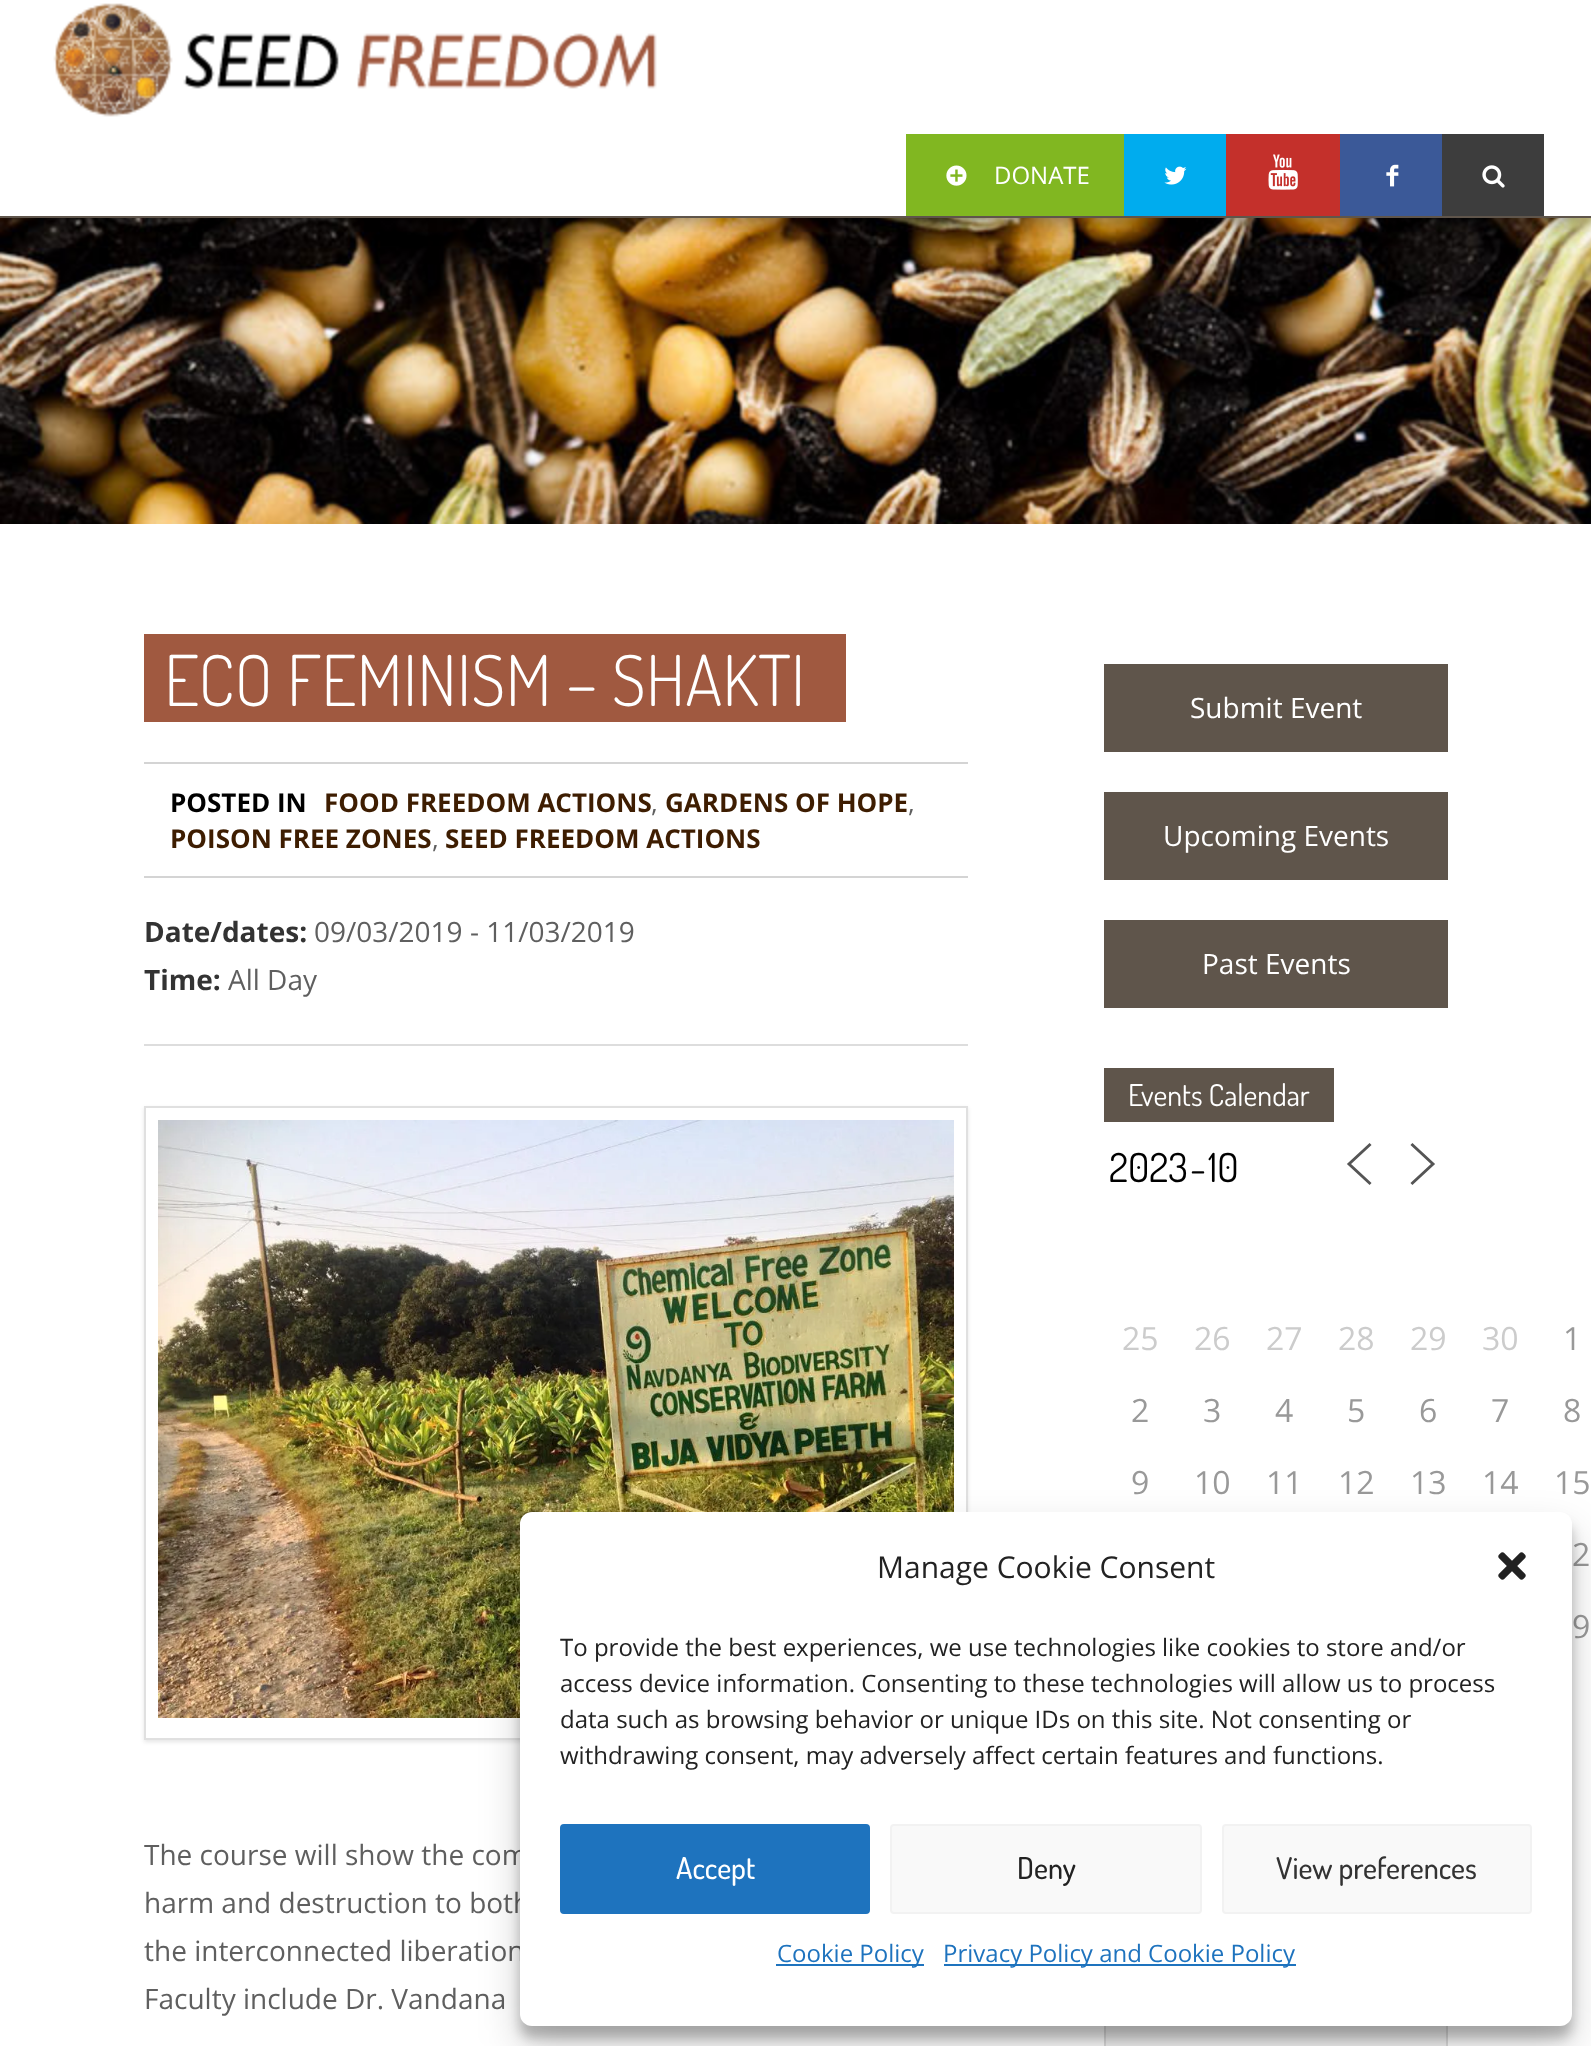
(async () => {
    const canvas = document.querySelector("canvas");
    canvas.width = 1591;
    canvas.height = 2046;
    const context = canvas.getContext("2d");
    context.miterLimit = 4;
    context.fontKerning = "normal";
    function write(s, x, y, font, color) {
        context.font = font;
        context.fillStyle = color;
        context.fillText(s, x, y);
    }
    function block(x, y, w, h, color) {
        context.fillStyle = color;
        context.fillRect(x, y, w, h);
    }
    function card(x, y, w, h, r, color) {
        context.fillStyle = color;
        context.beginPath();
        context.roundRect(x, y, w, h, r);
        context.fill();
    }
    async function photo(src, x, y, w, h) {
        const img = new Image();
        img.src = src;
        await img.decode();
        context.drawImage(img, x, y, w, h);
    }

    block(0, 0, 1591, 2046, "rgb(255, 255, 255)");
    await photo("media/7.png", 0, 218, 1591, 306);
    context.fillStyle = "rgba(0, 0, 0, 0.5)";
    context.filter = "blur(12px)";
    context.beginPath();
    context.rect(0, 0, 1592, 218);
    context.fill();
    context.filter = "none";
    block(0, 0, 1591, 216, "rgb(255, 255, 255)");
    block(0, 216, 1591, 2, "rgb(95, 85, 75)");
    await photo("media/1.png", 53, 3, 604, 114);
    block(906, 134, 218, 82, "rgb(129, 183, 33)");
    await photo("media/2.png", 946, 165, 21, 21);
    write("DONATE", 994, 184, "24px Open Sans", "rgb(255, 255, 255)");
    block(1124, 134, 102, 82, "rgb(0, 172, 238)");
    await photo("media/3.png", 1164, 166, 23, 19);
    block(1226, 134, 114, 82, "rgb(196, 48, 43)");
    await photo("media/4.png", 1268, 154, 30, 36);
    block(1340, 134, 102, 82, "rgb(59, 89, 152)");
    await photo("media/5.png", 1386, 164, 13, 23);
    block(1442, 134, 102, 82, "rgb(61, 61, 61)");
    await photo("media/6.png", 1482, 165, 23, 23);
    block(144, 634, 20, 88, "rgb(160, 89, 64)");
    block(164, 634, 682, 88, "rgb(160, 89, 64)");
    write("ECO FEMINISM – SHAKTI", 164, 706, "300 70px Dosis", "rgb(255, 255, 255)");
    block(144, 762, 824, 2, "rgb(212, 212, 212)");
    block(144, 876, 824, 2, "rgb(212, 212, 212)");
    write("POSTED IN", 170, 812, "bold 26px Open Sans", "rgb(0, 0, 0)");
    write("FOOD FREEDOM ACTIONS", 324, 812, "bold 26px Open Sans", "rgb(62, 29, 1)");
    write(",", 651, 812, "26px Open Sans", "rgb(95, 95, 95)");
    write("GARDENS OF HOPE", 665, 812, "bold 26px Open Sans", "rgb(62, 29, 1)");
    write(",", 908, 812, "26px Open Sans", "rgb(95, 95, 95)");
    write("POISON FREE ZONES", 170, 848, "bold 26px Open Sans", "rgb(62, 29, 1)");
    write(",", 432, 848, "26px Open Sans", "rgb(95, 95, 95)");
    write("SEED FREEDOM ACTIONS", 445, 848, "bold 26px Open Sans", "rgb(62, 29, 1)");
    write("Date/dates:", 144, 942, "bold 28px Open Sans", "rgb(51, 51, 51)");
    write("09/03/2019 - 11/03/2019", 314, 942, "28px Open Sans", "rgb(95, 95, 95)");
    write("Time:", 144, 990, "bold 28px Open Sans", "rgb(51, 51, 51)");
    write("All Day", 228, 990, "28px Open Sans", "rgb(95, 95, 95)");
    block(144, 1044, 824, 2, "rgb(221, 221, 221)");
    context.save();
    context.beginPath();
    context.moveTo(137, 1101);
    context.lineTo(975, 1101);
    context.lineTo(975, 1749);
    context.lineTo(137, 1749);
    context.closePath();
    context.moveTo(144, 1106);
    context.lineTo(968, 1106);
    context.lineTo(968, 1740);
    context.lineTo(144, 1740);
    context.closePath();
    context.clip("evenodd");
    context.fillStyle = "rgba(0, 0, 0, 0.1)";
    context.filter = "blur(2px)";
    context.beginPath();
    context.rect(144, 1108, 824, 634);
    context.fill();
    context.filter = "none";
    context.restore();
    context.strokeStyle = "rgb(224, 224, 224)";
    context.lineWidth = 2;
    context.strokeRect(145, 1107, 822, 632);
    await photo("media/8.png", 158, 1120, 796, 598);
    write("The course will show the com", 144, 1865, "28px Open Sans", "rgb(95, 95, 95)");
    write("harm and destruction to both", 144, 1913, "28px Open Sans", "rgb(95, 95, 95)");
    write("the interconnected liberation", 144, 1961, "28px Open Sans", "rgb(95, 95, 95)");
    write("Faculty include Dr. Vandana", 144, 2009, "28px Open Sans", "rgb(95, 95, 95)");
    block(1104, 664, 344, 88, "rgb(95, 85, 75)");
    write("Submit Event", 1190, 718, "28px Open Sans", "rgb(255, 255, 255)");
    block(1104, 792, 344, 88, "rgb(95, 85, 75)");
    write("Upcoming Events", 1163, 846, "28px Open Sans", "rgb(255, 255, 255)");
    block(1104, 920, 344, 88, "rgb(95, 85, 75)");
    write("Past Events", 1202, 974, "28px Open Sans", "rgb(255, 255, 255)");
    block(1104, 1068, 230, 54, "rgb(95, 85, 75)");
    write("Events Calendar", 1128, 1106, "30px Dosis", "rgb(255, 255, 255)");
    write("2023", 1109, 1182, "40px Dosis", "rgb(0, 0, 0)");
    write("-", 1190, 1182, "40px Dosis", "rgb(0, 0, 0)");
    write("10", 1208, 1182, "40px Dosis", "rgb(0, 0, 0)");
    context.beginPath();
    context.moveTo(1369.5, 1183);
    context.lineTo(1349, 1164);
    context.lineTo(1369.5, 1145);
    context.strokeStyle = "rgb(85, 85, 85)";
    context.lineWidth = 2.9;
    context.lineCap = "square";
    context.stroke();
    context.beginPath();
    context.moveTo(1412.5, 1183);
    context.lineTo(1433, 1164);
    context.lineTo(1412.5, 1145);
    context.stroke();
    write("25", 1122, 1350, "32px Open Sans", "rgb(204, 204, 204)");
    write("26", 1194, 1350, "32px Open Sans", "rgb(204, 204, 204)");
    write("27", 1266, 1350, "32px Open Sans", "rgb(204, 204, 204)");
    write("28", 1338, 1350, "32px Open Sans", "rgb(204, 204, 204)");
    write("29", 1410, 1350, "32px Open Sans", "rgb(204, 204, 204)");
    write("30", 1482, 1350, "32px Open Sans", "rgb(204, 204, 204)");
    write("1", 1563, 1350, "32px Open Sans", "rgb(153, 153, 153)");
    write("2", 1131, 1422, "32px Open Sans", "rgb(153, 153, 153)");
    write("3", 1203, 1422, "32px Open Sans", "rgb(153, 153, 153)");
    write("4", 1275, 1422, "32px Open Sans", "rgb(153, 153, 153)");
    write("5", 1347, 1422, "32px Open Sans", "rgb(153, 153, 153)");
    write("6", 1419, 1422, "32px Open Sans", "rgb(153, 153, 153)");
    write("7", 1491, 1422, "32px Open Sans", "rgb(153, 153, 153)");
    write("8", 1563, 1422, "32px Open Sans", "rgb(153, 153, 153)");
    write("9", 1131, 1494, "32px Open Sans", "rgb(153, 153, 153)");
    write("10", 1194, 1494, "32px Open Sans", "rgb(153, 153, 153)");
    write("11", 1266, 1494, "32px Open Sans", "rgb(153, 153, 153)");
    write("12", 1338, 1494, "32px Open Sans", "rgb(153, 153, 153)");
    write("13", 1410, 1494, "32px Open Sans", "rgb(153, 153, 153)");
    write("14", 1482, 1494, "32px Open Sans", "rgb(153, 153, 153)");
    write("15", 1554, 1494, "32px Open Sans", "rgb(153, 153, 153)");
    write("2", 1572, 1566, "32px Open Sans", "rgb(153, 153, 153)");
    write("9", 1572, 1638, "32px Open Sans", "rgb(153, 153, 153)");
    block(1106, 2026, 340, 20, "rgb(244, 244, 244)");
    context.strokeStyle = "rgb(221, 221, 221)";
    context.lineWidth = 2;
    context.strokeRect(1105, 1989, 342, 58);
    context.fillStyle = "rgba(0, 0, 0, 0.23)";
    context.filter = "blur(6px)";
    context.beginPath();
    context.roundRect(520, 1524, 1052, 514, 12);
    context.fill();
    context.filter = "none";
    context.fillStyle = "rgba(0, 0, 0, 0.19)";
    context.filter = "blur(20px)";
    context.beginPath();
    context.roundRect(520, 1532, 1052, 514, 12);
    context.fill();
    context.filter = "none";
    card(520, 1512, 1052, 514, 12, "rgb(255, 255, 255)");
    write("Manage Cookie Consent", 877, 1578, "30px Open Sans", "rgb(34, 34, 34)");
    await photo("media/9.png", 1498, 1552, 28, 28);
    write("To provide the best experiences, we use technologies like cookies to store and/or", 560, 1656, "24px Open Sans", "rgb(34, 34, 34)");
    write("access device information. Consenting to these technologies will allow us to process", 560, 1692, "24px Open Sans", "rgb(34, 34, 34)");
    write("data such as browsing behavior or unique IDs on this site. Not consenting or", 560, 1728, "24px Open Sans", "rgb(34, 34, 34)");
    write("withdrawing consent, may adversely affect certain features and functions.", 560, 1764, "24px Open Sans", "rgb(34, 34, 34)");
    context.fillStyle = "rgb(30, 115, 190)";
    context.beginPath();
    context.roundRect(561, 1825, 308, 88, 3);
    context.fill();
    context.strokeStyle = "rgb(30, 115, 190)";
    context.stroke();
    write("Accept", 676, 1879, "500 30px Dosis", "rgb(255, 255, 255)");
    context.fillStyle = "rgb(249, 249, 249)";
    context.beginPath();
    context.roundRect(891, 1825, 310, 88, 3);
    context.fill();
    context.strokeStyle = "rgb(242, 242, 242)";
    context.stroke();
    write("Deny", 1017, 1879, "500 30px Dosis", "rgb(34, 34, 34)");
    context.fillStyle = "rgb(249, 249, 249)";
    context.beginPath();
    context.roundRect(1223, 1825, 308, 88, 3);
    context.fill();
    context.stroke();
    write("View preferences", 1276, 1879, "500 30px Dosis", "rgb(51, 51, 51)");
    block(776, 1964, 148, 2, "rgb(30, 115, 190)");
    write("Cookie Policy", 777, 1962, "24px Open Sans", "rgb(30, 115, 190)");
    block(944, 1964, 352, 2, "rgb(30, 115, 190)");
    write("Privacy Policy and Cookie Policy", 943, 1962, "24px Open Sans", "rgb(30, 115, 190)");
})();
